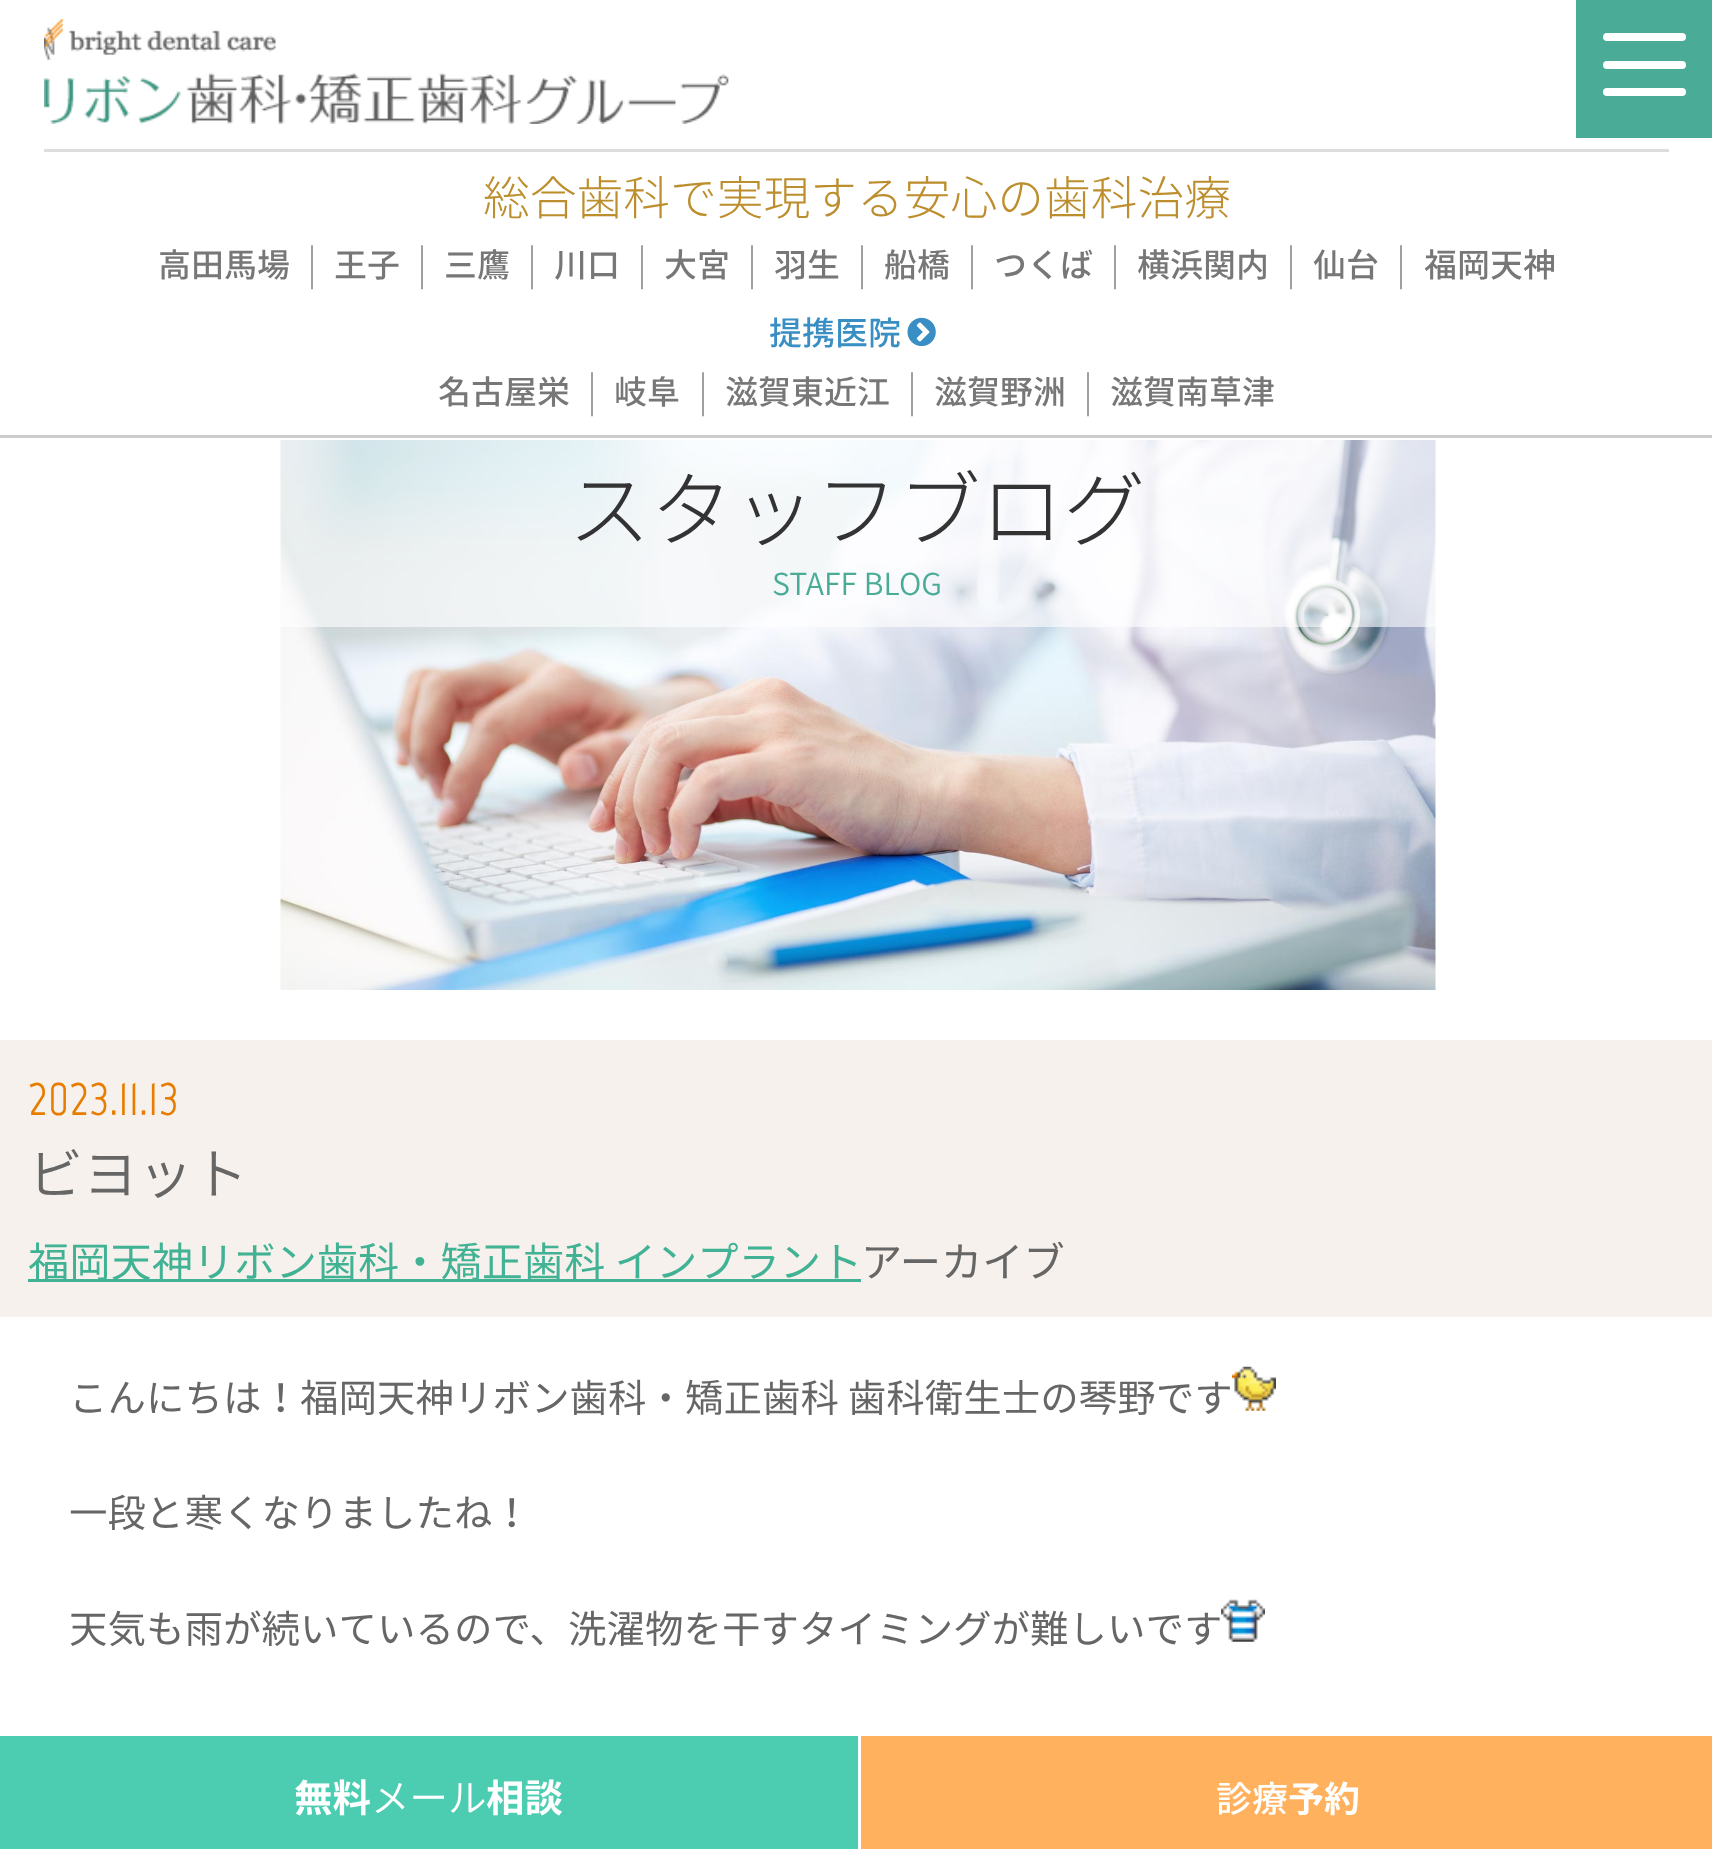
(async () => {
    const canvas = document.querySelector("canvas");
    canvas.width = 1712;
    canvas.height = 1849;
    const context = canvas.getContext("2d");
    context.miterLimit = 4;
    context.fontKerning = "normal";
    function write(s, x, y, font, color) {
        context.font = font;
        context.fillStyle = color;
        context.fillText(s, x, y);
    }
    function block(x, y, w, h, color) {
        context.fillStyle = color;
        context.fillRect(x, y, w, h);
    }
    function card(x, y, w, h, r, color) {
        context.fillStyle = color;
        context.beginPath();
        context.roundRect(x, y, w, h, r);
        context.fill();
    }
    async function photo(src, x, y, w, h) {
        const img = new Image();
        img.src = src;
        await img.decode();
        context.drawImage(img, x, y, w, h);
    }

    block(0, 0, 1712, 1849, "rgb(255, 255, 255)");
    block(1576, 0, 136, 138, "rgb(74, 172, 150)");
    card(1603, 88, 83, 8, 4, "rgb(255, 255, 255)");
    card(1603, 33, 83, 8, 4, "rgb(255, 255, 255)");
    card(1603, 61, 83, 8, 4, "rgb(255, 255, 255)");
    await photo("media/1.png", 44, 19, 685, 105);
    block(44, 149, 1625, 3, "rgb(221, 221, 221)");
    write("総合歯科で実現する安心の歯科治療", 483, 215, "300 46.75px Noto Sans JP", "rgb(188, 142, 45)");
    write("高田馬場", 158, 277, "500 33px Noto Sans JP", "rgb(119, 119, 119)");
    write("｜", 290, 284, "44px Noto Sans JP", "rgb(153, 153, 153)");
    write("王子", 334, 277, "500 33px Noto Sans JP", "rgb(119, 119, 119)");
    write("｜", 400, 284, "44px Noto Sans JP", "rgb(153, 153, 153)");
    write("三鷹", 444, 277, "500 33px Noto Sans JP", "rgb(119, 119, 119)");
    write("｜", 510, 284, "44px Noto Sans JP", "rgb(153, 153, 153)");
    write("川口", 554, 277, "500 33px Noto Sans JP", "rgb(119, 119, 119)");
    write("｜", 620, 284, "44px Noto Sans JP", "rgb(153, 153, 153)");
    write("大宮", 664, 277, "500 33px Noto Sans JP", "rgb(119, 119, 119)");
    write("｜", 730, 284, "44px Noto Sans JP", "rgb(153, 153, 153)");
    write("羽生", 774, 277, "500 33px Noto Sans JP", "rgb(119, 119, 119)");
    write("｜", 840, 284, "44px Noto Sans JP", "rgb(153, 153, 153)");
    write("船橋", 884, 277, "500 33px Noto Sans JP", "rgb(119, 119, 119)");
    write("｜", 950, 284, "44px Noto Sans JP", "rgb(153, 153, 153)");
    write("つくば", 994, 277, "500 33px Noto Sans JP", "rgb(119, 119, 119)");
    write("｜", 1093, 284, "44px Noto Sans JP", "rgb(153, 153, 153)");
    write("横浜関内", 1137, 277, "500 33px Noto Sans JP", "rgb(119, 119, 119)");
    write("｜", 1269, 284, "44px Noto Sans JP", "rgb(153, 153, 153)");
    write("仙台", 1313, 277, "500 33px Noto Sans JP", "rgb(119, 119, 119)");
    write("｜", 1379, 284, "44px Noto Sans JP", "rgb(153, 153, 153)");
    write("福岡天神", 1424, 277, "500 33px Noto Sans JP", "rgb(119, 119, 119)");
    write("提携医院", 769, 345, "500 33px Noto Sans JP", "rgb(57, 142, 195)");
    await photo("media/2.png", 907, 317, 29, 30);
    write("名古屋栄", 438, 404, "500 33px Noto Sans JP", "rgb(119, 119, 119)");
    write("｜", 570, 411, "44px Noto Sans JP", "rgb(153, 153, 153)");
    write("岐阜", 614, 404, "500 33px Noto Sans JP", "rgb(119, 119, 119)");
    write("｜", 681, 411, "44px Noto Sans JP", "rgb(153, 153, 153)");
    write("滋賀東近江", 725, 404, "500 33px Noto Sans JP", "rgb(119, 119, 119)");
    write("｜", 890, 411, "44px Noto Sans JP", "rgb(153, 153, 153)");
    write("滋賀野洲", 934, 404, "500 33px Noto Sans JP", "rgb(119, 119, 119)");
    write("｜", 1066, 411, "44px Noto Sans JP", "rgb(153, 153, 153)");
    write("滋賀南草津", 1110, 404, "500 33px Noto Sans JP", "rgb(119, 119, 119)");
    await photo("media/3.png", 280, 440, 1156, 550);
    block(280, 440, 1156, 187, "rgba(255, 255, 255, 0.6)");
    block(0, 435, 1712, 3, "rgb(204, 204, 204)");
    write("スタッフブログ", 568, 540, "300 82.5px Noto Sans JP", "rgb(51, 51, 51)");
    write("STAFF BLOG", 772, 595, "300 30.25px 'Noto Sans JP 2'", "rgb(74, 172, 150)");
    block(0, 1040, 1712, 277, "rgb(246, 241, 236)");
    write("2023.11.13", 28, 1115, "49.5px Marvel", "rgb(231, 125, 0)");
    write("ビヨット", 28, 1194, "300 55px 'Noto Sans JP 2'", "rgb(102, 102, 102)");
    block(28, 1279, 833, 3, "rgb(65, 178, 148)");
    write("福岡天神リボン歯科・矯正歯科 インプラント", 28, 1277, "41.25px Noto Sans JP", "rgb(65, 178, 148)");
    write("アーカイブ", 861, 1277, "41.25px Noto Sans JP", "rgb(102, 102, 102)");
    write("こんにちは！福岡天神リボン歯科・矯正歯科 歯科衛生士の琴野です", 69, 1412, "38.5px Noto Sans JP", "rgb(102, 102, 102)");
    await photo("media/4.png", 1232, 1366, 44, 45);
    write("一段と寒くなりましたね！", 69, 1527, "38.5px Noto Sans JP", "rgb(102, 102, 102)");
    write("天気も雨が続いているので、洗濯物を干すタイミングが難しいです", 69, 1643, "38.5px Noto Sans JP", "rgb(102, 102, 102)");
    await photo("media/5.png", 1221, 1599, 44, 43);
    block(0, 1736, 858, 113, "rgb(76, 205, 177)");
    write("無料", 294, 1812, "bold 38.5px Noto Sans JP", "rgb(255, 255, 255)");
    write("メール", 371, 1812, "300 38.5px 'Noto Sans JP 2'", "rgb(255, 255, 255)");
    write("相談", 486, 1812, "bold 38.5px Noto Sans JP", "rgb(255, 255, 255)");
    block(861, 1736, 851, 113, "rgb(255, 177, 94)");
    write("診療", 1216, 1812, "500 36px Noto Sans JP", "rgb(255, 255, 255)");
    write("予約", 1288, 1812, "bold 36px Noto Sans JP", "rgb(255, 255, 255)");
})();
